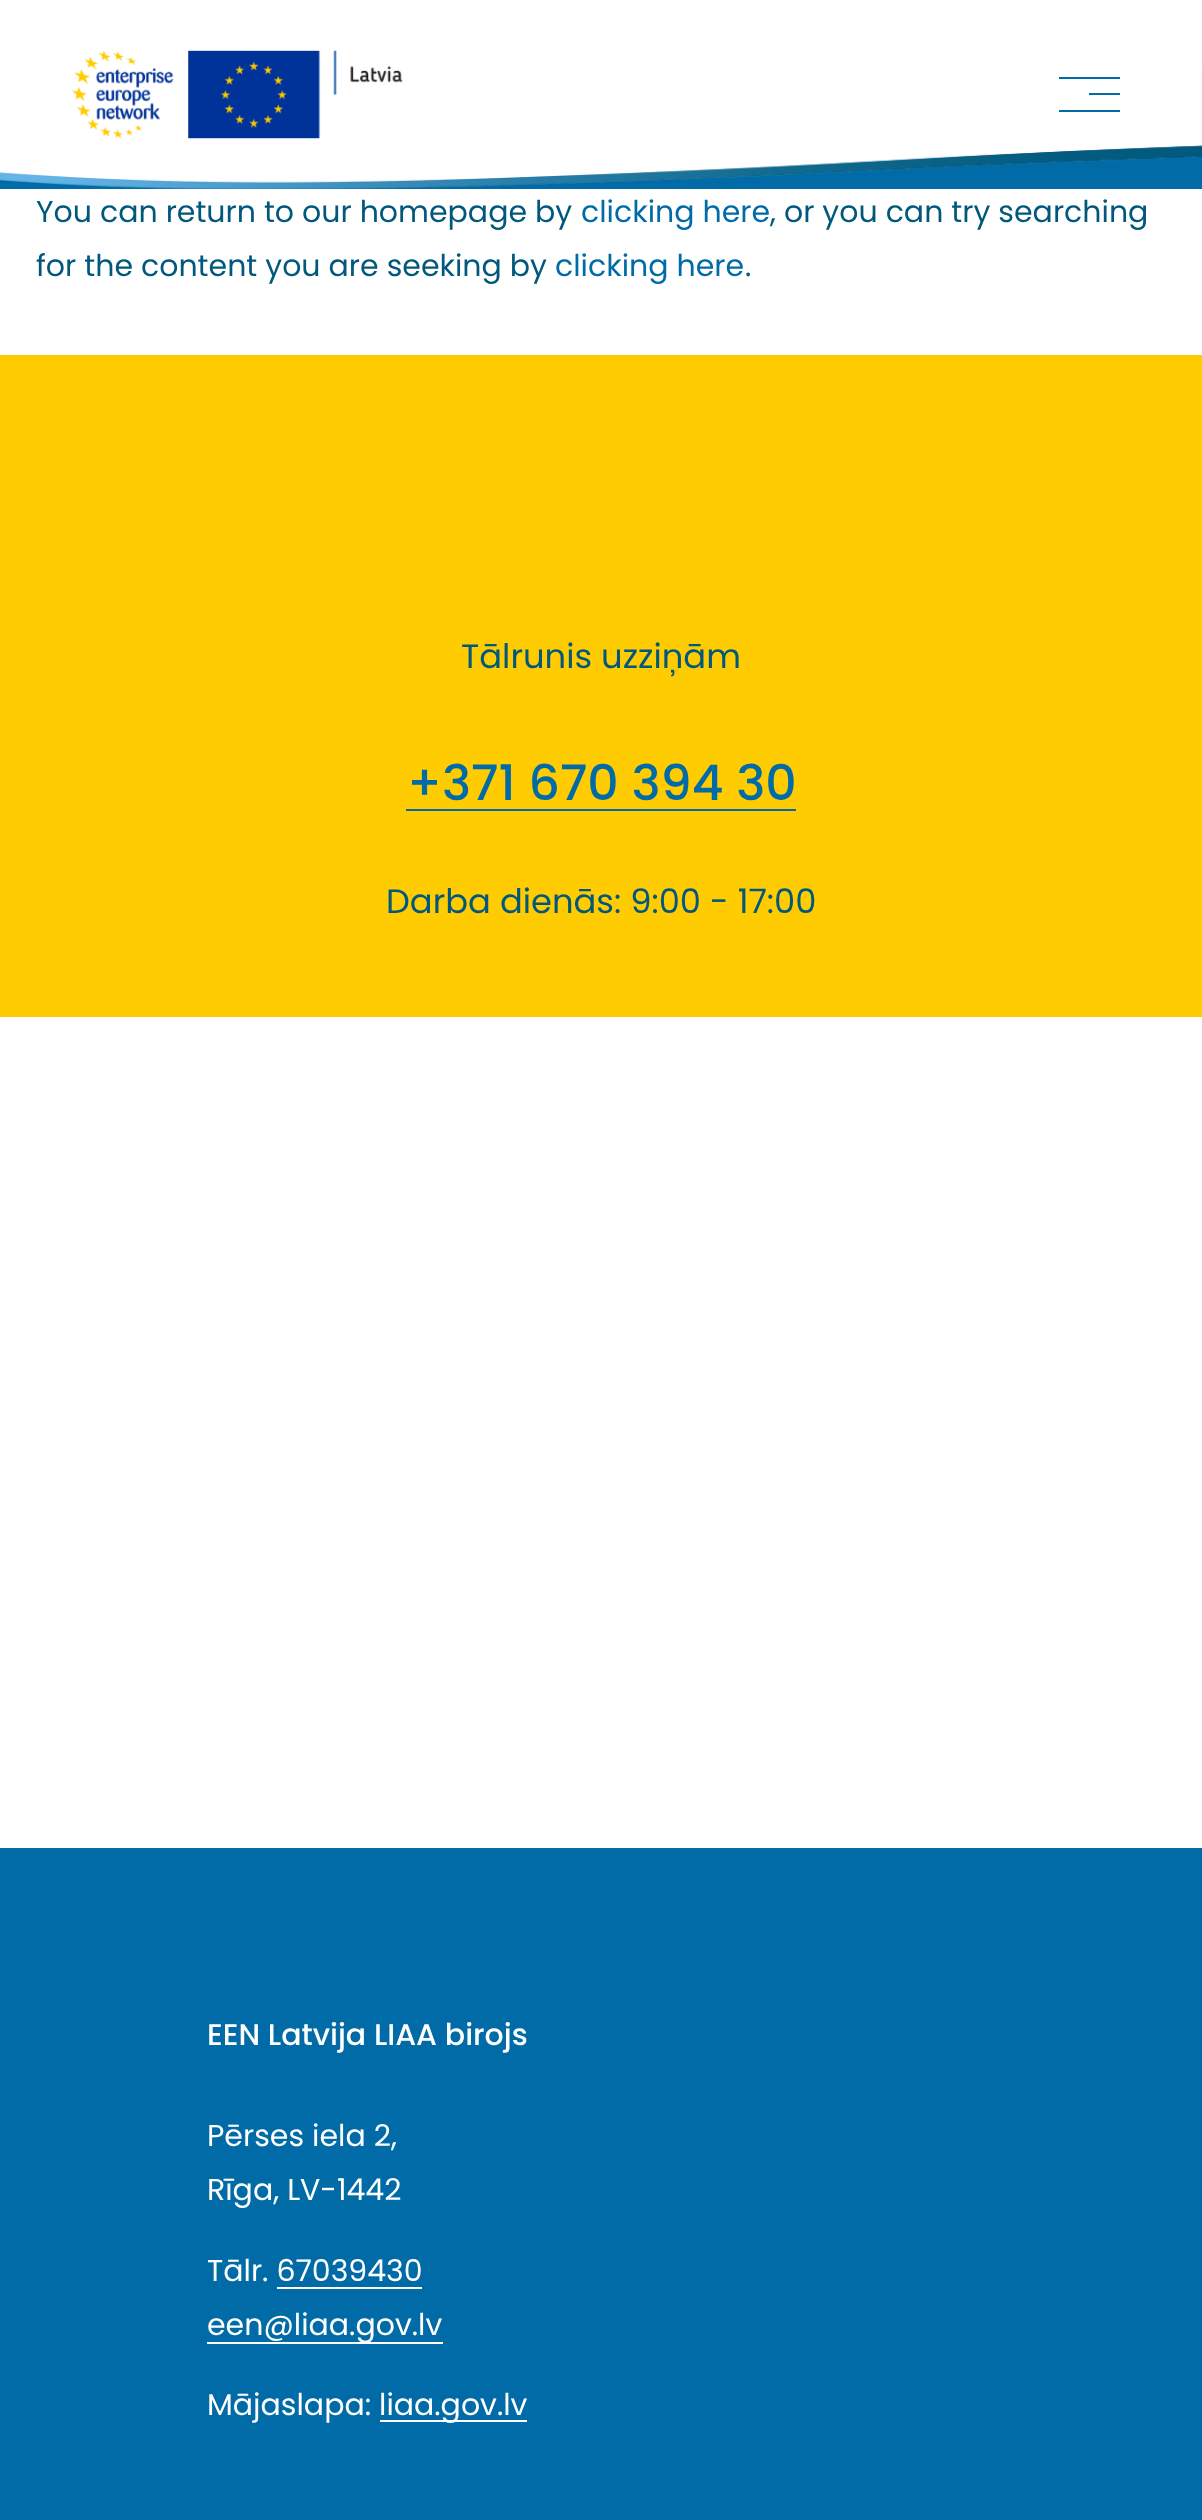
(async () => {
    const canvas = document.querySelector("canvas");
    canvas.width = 1202;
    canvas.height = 2520;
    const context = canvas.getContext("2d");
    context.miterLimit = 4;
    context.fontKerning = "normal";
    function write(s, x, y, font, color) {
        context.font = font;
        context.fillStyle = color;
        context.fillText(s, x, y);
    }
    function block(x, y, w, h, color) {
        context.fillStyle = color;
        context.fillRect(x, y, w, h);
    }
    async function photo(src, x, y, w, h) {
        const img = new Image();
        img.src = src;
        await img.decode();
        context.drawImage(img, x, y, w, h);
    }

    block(0, 0, 1202, 2520, "rgb(255, 255, 255)");
    block(0, 70, 1202, 119, "rgb(0, 107, 166)");
    await photo("media/1.png", 0, 0, 1202, 189);
    await photo("media/2.png", 71, 50, 332, 89);
    block(1059, 77, 61, 2, "rgb(0, 107, 166)");
    block(1089, 93, 31, 2, "rgb(0, 107, 166)");
    block(1059, 110, 61, 2, "rgb(0, 107, 166)");
    write("You can return to our homepage by", 36, 222, "30px Poppins", "rgb(1, 88, 124)");
    write("clicking here", 581, 222, "30px Poppins", "rgb(0, 107, 166)");
    write(", or you can try searching", 770, 222, "30px Poppins", "rgb(1, 88, 124)");
    write("for the content you are seeking by", 36, 276, "30px Poppins", "rgb(1, 88, 124)");
    write("clicking here", 555, 276, "30px Poppins", "rgb(0, 107, 166)");
    write(".", 745, 276, "30px Poppins", "rgb(1, 88, 124)");
    block(0, 355, 1202, 662, "rgb(255, 204, 2)");
    write("Tālrunis uzziņām", 461, 668, "33.75px Poppins", "rgb(1, 88, 124)");
    write("+371 670 394 30", 407, 800, "500 49px Poppins", "rgb(0, 107, 166)");
    block(406, 809, 390, 2, "rgb(0, 107, 166)");
    write("Darba dienās: 9:00 - 17:00", 386, 913, "33.75px Poppins", "rgb(1, 88, 124)");
    block(0, 1848, 1202, 672, "rgb(0, 107, 166)");
    write("EEN Latvija LIAA birojs", 207, 2045, "500 30px Poppins", "rgb(255, 255, 255)");
    write("Pērses iela 2,", 207, 2146, "30px Poppins", "rgb(255, 255, 255)");
    write("Rīga, LV-1442", 207, 2200, "30px Poppins", "rgb(255, 255, 255)");
    write("Tālr. 67039430", 207, 2281, "30px Poppins", "rgb(255, 255, 255)");
    block(277, 2287, 145, 2, "rgb(255, 255, 255)");
    block(207, 2342, 236, 2, "rgb(255, 255, 255)");
    write("een@liaa.gov.lv", 207, 2335, "30px Poppins", "rgb(255, 255, 255)");
    write("Mājaslapa:", 207, 2415, "30px Poppins", "rgb(255, 255, 255)");
    block(380, 2420, 147, 2, "rgb(255, 255, 255)");
    write("liaa.gov.lv", 379, 2415, "30px Poppins", "rgb(255, 255, 255)");
})();
